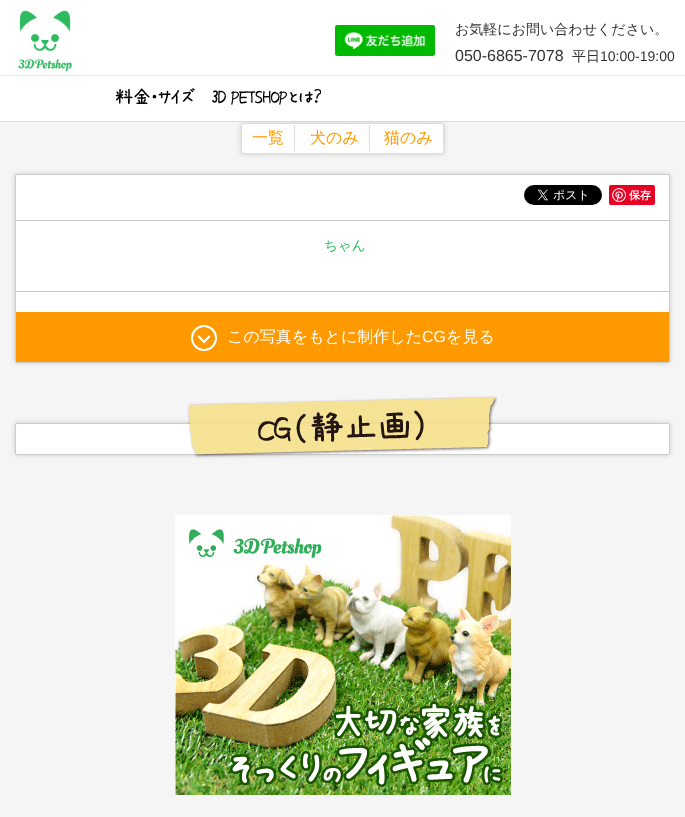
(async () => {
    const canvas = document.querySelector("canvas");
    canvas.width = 685;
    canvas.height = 817;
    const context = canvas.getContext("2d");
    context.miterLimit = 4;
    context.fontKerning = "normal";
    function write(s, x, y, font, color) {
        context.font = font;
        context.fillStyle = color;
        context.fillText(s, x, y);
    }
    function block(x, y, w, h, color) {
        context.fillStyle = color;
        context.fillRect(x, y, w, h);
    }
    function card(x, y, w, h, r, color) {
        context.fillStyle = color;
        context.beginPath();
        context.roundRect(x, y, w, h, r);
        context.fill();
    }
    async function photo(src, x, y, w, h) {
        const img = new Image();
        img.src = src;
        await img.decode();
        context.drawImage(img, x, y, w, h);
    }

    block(0, 0, 685, 817, "rgb(245, 245, 245)");
    context.fillStyle = "rgb(204, 204, 204)";
    context.filter = "blur(2.5px)";
    context.beginPath();
    context.roundRect(241, 123, 203, 31, 3);
    context.fill();
    context.filter = "none";
    block(0, 0, 685, 121, "rgb(255, 255, 255)");
    block(0, 121, 685, 1, "rgb(221, 221, 221)");
    await photo("media/1.png", 18, 10, 54, 62);
    await photo("media/2.png", 335, 25, 100, 31);
    write("お気軽にお問い合わせください。", 455, 34, "500 14px WenQuanYi Zen Hei", "rgb(51, 51, 51)");
    write("050-6865-7078", 455, 61, "16px Liberation Sans", "rgb(51, 51, 51)");
    write("平日", 572, 61, "500 14px WenQuanYi Zen Hei", "rgb(51, 51, 51)");
    write("10:00-19:00", 600, 61, "14px Liberation Sans", "rgb(51, 51, 51)");
    block(0, 75, 685, 1, "rgb(231, 231, 231)");
    await photo("media/3.png", 115, 88, 80, 17);
    await photo("media/4.png", 212, 89, 109, 16);
    context.fillStyle = "rgb(255, 255, 255)";
    context.beginPath();
    context.roundRect(241.5, 123.5, 202, 30, 2.5);
    context.fill();
    context.strokeStyle = "rgb(221, 221, 221)";
    context.stroke();
    block(294, 125, 1, 26, "rgb(221, 221, 221)");
    write("一覧", 252, 143, "500 16px WenQuanYi Zen Hei", "rgb(255, 153, 0)");
    block(369, 125, 1, 26, "rgb(221, 221, 221)");
    write("犬のみ", 310, 143, "500 16px WenQuanYi Zen Hei", "rgb(255, 153, 0)");
    write("猫のみ", 384, 143, "500 16px WenQuanYi Zen Hei", "rgb(255, 153, 0)");
    context.fillStyle = "rgb(204, 204, 204)";
    context.filter = "blur(2.5px)";
    context.beginPath();
    context.roundRect(15, 174, 655, 189, 2);
    context.fill();
    context.filter = "none";
    context.fillStyle = "rgb(255, 255, 255)";
    context.beginPath();
    context.roundRect(15.5, 174.5, 654, 188, 1.5);
    context.fill();
    context.strokeStyle = "rgb(204, 204, 204)";
    context.stroke();
    block(16, 220, 653, 1, "rgb(204, 204, 204)");
    await photo("media/5.png", 524, 185, 78, 20);
    card(609, 185, 46, 20, 2, "rgb(230, 0, 35)");
    await photo("media/6.png", 612, 188, 14, 14);
    write("保存", 629, 199, "bold 11px WenQuanYi Zen Hei", "rgb(255, 255, 255)");
    block(16, 291, 653, 1, "rgb(204, 204, 204)");
    write("ちゃん", 324, 250, "500 13.5px WenQuanYi Zen Hei", "rgb(46, 187, 96)");
    block(16, 312, 653, 50, "rgb(255, 153, 0)");
    await photo("media/7.png", 191, 325, 26, 26);
    write("この写真をもとに制作した", 227, 342, "500 16px WenQuanYi Zen Hei", "rgb(255, 255, 255)");
    write("CG", 422, 342, "16px Liberation Sans", "rgb(255, 255, 255)");
    write("を見る", 446, 342, "500 16px WenQuanYi Zen Hei", "rgb(255, 255, 255)");
    context.fillStyle = "rgb(204, 204, 204)";
    context.filter = "blur(2.5px)";
    context.beginPath();
    context.roundRect(15, 423, 655, 32, 2);
    context.fill();
    context.filter = "none";
    context.fillStyle = "rgb(255, 255, 255)";
    context.beginPath();
    context.roundRect(15.5, 423.5, 654, 31, 1.5);
    context.fill();
    context.stroke();
    await photo("media/8.png", 187, 396, 311, 62);
    await photo("media/9.png", 175, 515, 336, 280);
})();
